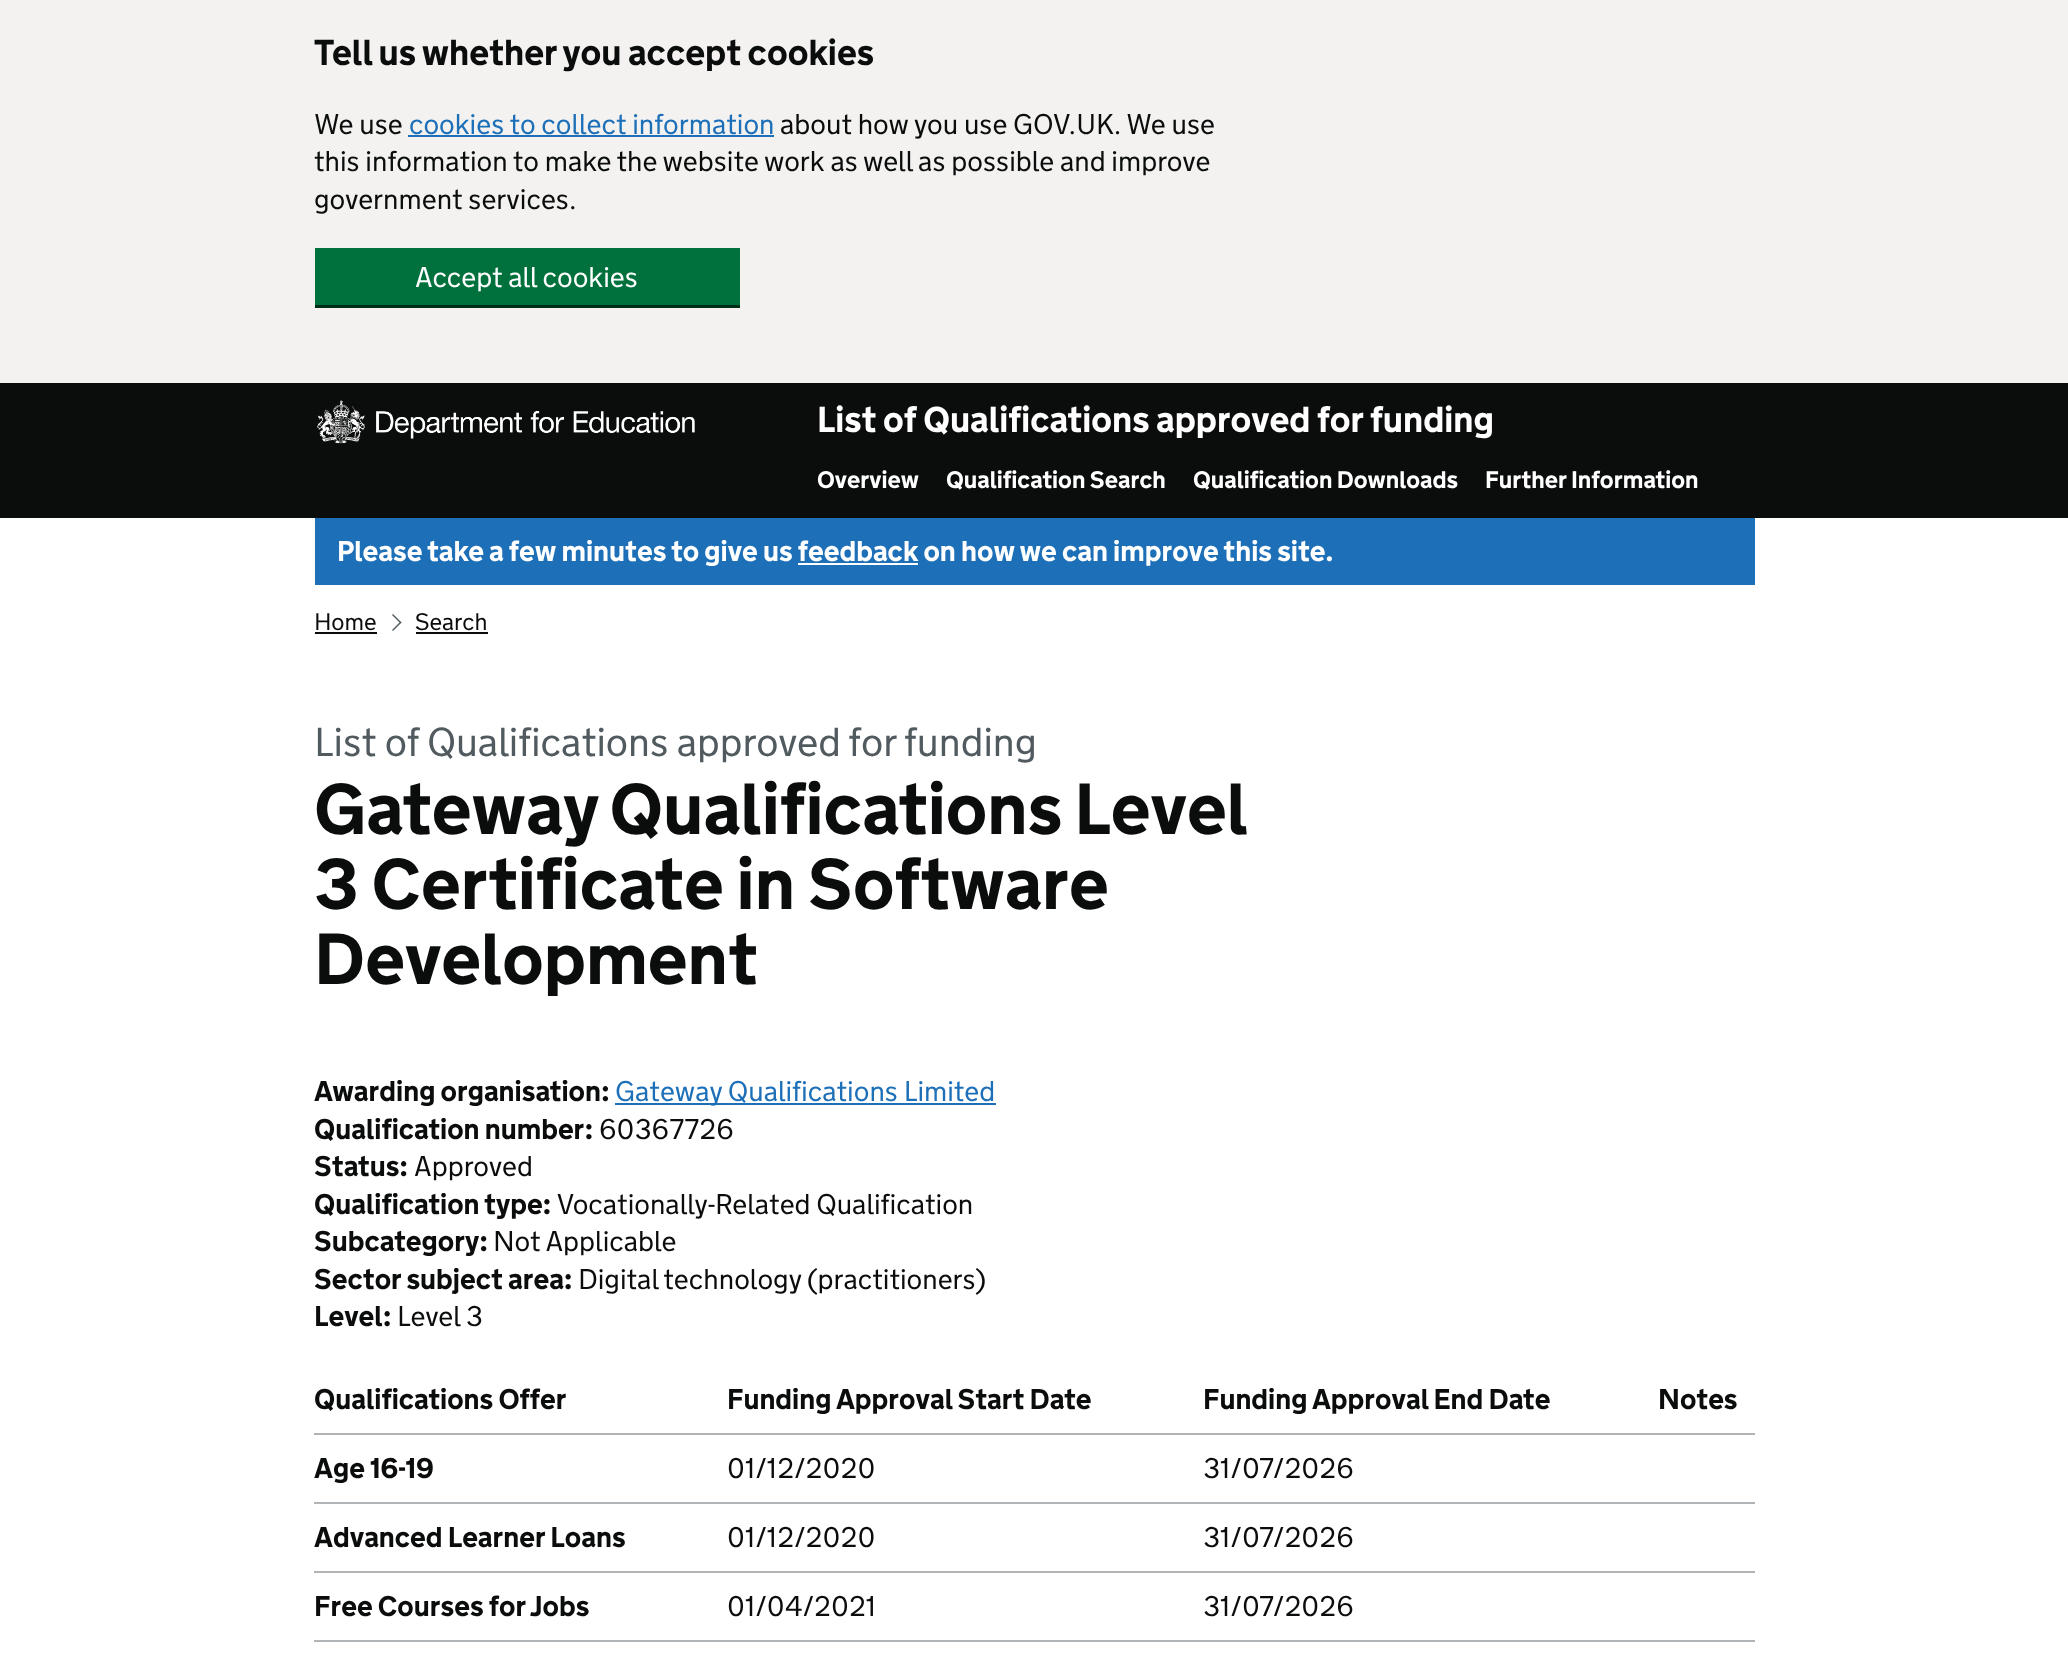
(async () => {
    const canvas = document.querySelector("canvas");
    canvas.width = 2068;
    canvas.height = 1675;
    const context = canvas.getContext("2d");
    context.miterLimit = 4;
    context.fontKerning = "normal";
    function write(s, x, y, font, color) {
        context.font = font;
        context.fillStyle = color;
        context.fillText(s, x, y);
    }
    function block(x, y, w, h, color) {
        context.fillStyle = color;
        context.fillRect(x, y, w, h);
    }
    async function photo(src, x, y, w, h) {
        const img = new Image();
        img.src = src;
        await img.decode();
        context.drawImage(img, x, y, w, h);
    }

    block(0, 0, 2068, 1675, "rgb(255, 255, 255)");
    block(0, 0, 2068, 383, "rgb(243, 242, 241)");
    write("Tell us whether you accept cookies", 314, 65, "bold 36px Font", "rgb(11, 12, 12)");
    write("We use", 314, 134, "300 28.5px Font", "rgb(11, 12, 12)");
    write("cookies to collect information", 409, 134, "300 28.5px Font", "rgb(29, 112, 184)");
    block(408, 135, 366, 2, "rgb(29, 112, 184)");
    write("about how you use GOV.UK. We use", 780, 134, "300 28.5px Font", "rgb(11, 12, 12)");
    write("this information to make the website work as well as possible and improve", 314, 171, "300 28.5px Font", "rgb(11, 12, 12)");
    write("government services.", 314, 209, "300 28.5px Font", "rgb(11, 12, 12)");
    context.fillStyle = "rgb(0, 45, 24)";
    context.beginPath();
    context.moveTo(315, 304);
    context.lineTo(315, 308);
    context.lineTo(740, 308);
    context.lineTo(740, 251);
    context.lineTo(740, 304);
    context.closePath();
    context.fill();
    block(315, 248, 425, 57, "rgb(0, 112, 60)");
    write("Accept all cookies", 415, 287, "300 28.5px Font", "rgb(255, 255, 255)");
    block(0, 383, 2068, 135, "rgb(11, 12, 12)");
    await photo("media/1.png", 317, 400, 378, 44);
    write("List of Qualifications approved for funding", 817, 432, "bold 36px Font", "rgb(255, 255, 255)");
    write("Overview", 817, 488, "bold 24px Font", "rgb(255, 255, 255)");
    write("Qualification Search", 946, 488, "bold 24px Font", "rgb(255, 255, 255)");
    write("Qualification Downloads", 1193, 488, "bold 24px Font", "rgb(255, 255, 255)");
    write("Further Information", 1485, 488, "bold 24px Font", "rgb(255, 255, 255)");
    block(315, 518, 1440, 67, "rgb(29, 112, 184)");
    write("Please take a few minutes to give us feedback on how we can improve this site.", 337, 561, "bold 28.5px Font", "rgb(255, 255, 255)");
    block(798, 563, 120, 2, "rgb(255, 255, 255)");
    write("Home", 314, 630, "300 24px Font", "rgb(11, 12, 12)");
    block(315, 632, 62, 2, "rgb(11, 12, 12)");
    context.fillStyle = "rgb(80, 90, 95)";
    context.beginPath();
    context.moveTo(393, 614);
    context.lineTo(401.5, 622.5);
    context.lineTo(400.5, 623.5);
    context.lineTo(392, 615);
    context.closePath();
    context.fill();
    context.beginPath();
    context.moveTo(400.5, 621.5);
    context.lineTo(401.5, 622.5);
    context.lineTo(393, 631);
    context.lineTo(392, 630);
    context.closePath();
    context.fill();
    write("Search", 415, 630, "300 24px Font", "rgb(11, 12, 12)");
    block(416, 632, 72, 2, "rgb(11, 12, 12)");
    write("List of Qualifications approved for funding", 314, 756, "300 40.5px Font", "rgb(80, 90, 95)");
    context.wordSpacing = "-1px";
    write("Gateway Qualifications Level", 314, 834, "bold 72px Font", "rgb(11, 12, 12)");
    context.wordSpacing = "0px";
    write("3 Certificate in Software", 314, 909, "bold 72px Font", "rgb(11, 12, 12)");
    write("Development", 314, 984, "bold 72px Font", "rgb(11, 12, 12)");
    write("Awarding organisation:", 314, 1101, "bold 28.5px Font", "rgb(11, 12, 12)");
    block(615, 1103, 381, 2, "rgb(29, 112, 184)");
    write("Gateway Qualifications Limited", 615, 1101, "300 28.5px Font", "rgb(29, 112, 184)");
    write("Qualification number:", 314, 1139, "bold 28.5px Font", "rgb(11, 12, 12)");
    write("60367726", 599, 1139, "300 28.5px Font", "rgb(11, 12, 12)");
    write("Status:", 314, 1176, "bold 28.5px Font", "rgb(11, 12, 12)");
    write("Approved", 414, 1176, "300 28.5px Font", "rgb(11, 12, 12)");
    write("Qualification type:", 314, 1214, "bold 28.5px Font", "rgb(11, 12, 12)");
    write("Vocationally-Related Qualification", 557, 1214, "300 28.5px Font", "rgb(11, 12, 12)");
    write("Subcategory:", 314, 1251, "bold 28.5px Font", "rgb(11, 12, 12)");
    write("Not Applicable", 493, 1251, "300 28.5px Font", "rgb(11, 12, 12)");
    write("Sector subject area:", 314, 1289, "bold 28.5px Font", "rgb(11, 12, 12)");
    write("Digital technology (practitioners)", 578, 1289, "300 28.5px Font", "rgb(11, 12, 12)");
    write("Level:", 314, 1326, "bold 28.5px Font", "rgb(11, 12, 12)");
    write("Level 3", 397, 1326, "300 28.5px Font", "rgb(11, 12, 12)");
    write("Qualifications Offer", 314, 1409, "bold 28.5px Font", "rgb(11, 12, 12)");
    write("Funding Approval Start Date", 727, 1409, "bold 28.5px Font", "rgb(11, 12, 12)");
    write("Funding Approval End Date", 1203, 1409, "bold 28.5px Font", "rgb(11, 12, 12)");
    block(314, 1433, 1441, 2, "rgb(177, 180, 182)");
    write("Notes", 1658, 1409, "bold 28.5px Font", "rgb(11, 12, 12)");
    write("Age 16-19", 314, 1478, "bold 28.5px Font", "rgb(11, 12, 12)");
    write("01/12/2020", 727, 1478, "300 28.5px Font", "rgb(11, 12, 12)");
    write("31/07/2026", 1203, 1478, "300 28.5px Font", "rgb(11, 12, 12)");
    block(314, 1502, 1441, 2, "rgb(177, 180, 182)");
    write("Advanced Learner Loans", 314, 1547, "bold 28.5px Font", "rgb(11, 12, 12)");
    write("01/12/2020", 727, 1547, "300 28.5px Font", "rgb(11, 12, 12)");
    write("31/07/2026", 1203, 1547, "300 28.5px Font", "rgb(11, 12, 12)");
    block(314, 1571, 1441, 2, "rgb(177, 180, 182)");
    write("Free Courses for Jobs", 314, 1616, "bold 28.5px Font", "rgb(11, 12, 12)");
    write("01/04/2021", 727, 1616, "300 28.5px Font", "rgb(11, 12, 12)");
    write("31/07/2026", 1203, 1616, "300 28.5px Font", "rgb(11, 12, 12)");
    block(314, 1640, 1441, 2, "rgb(177, 180, 182)");
})();
